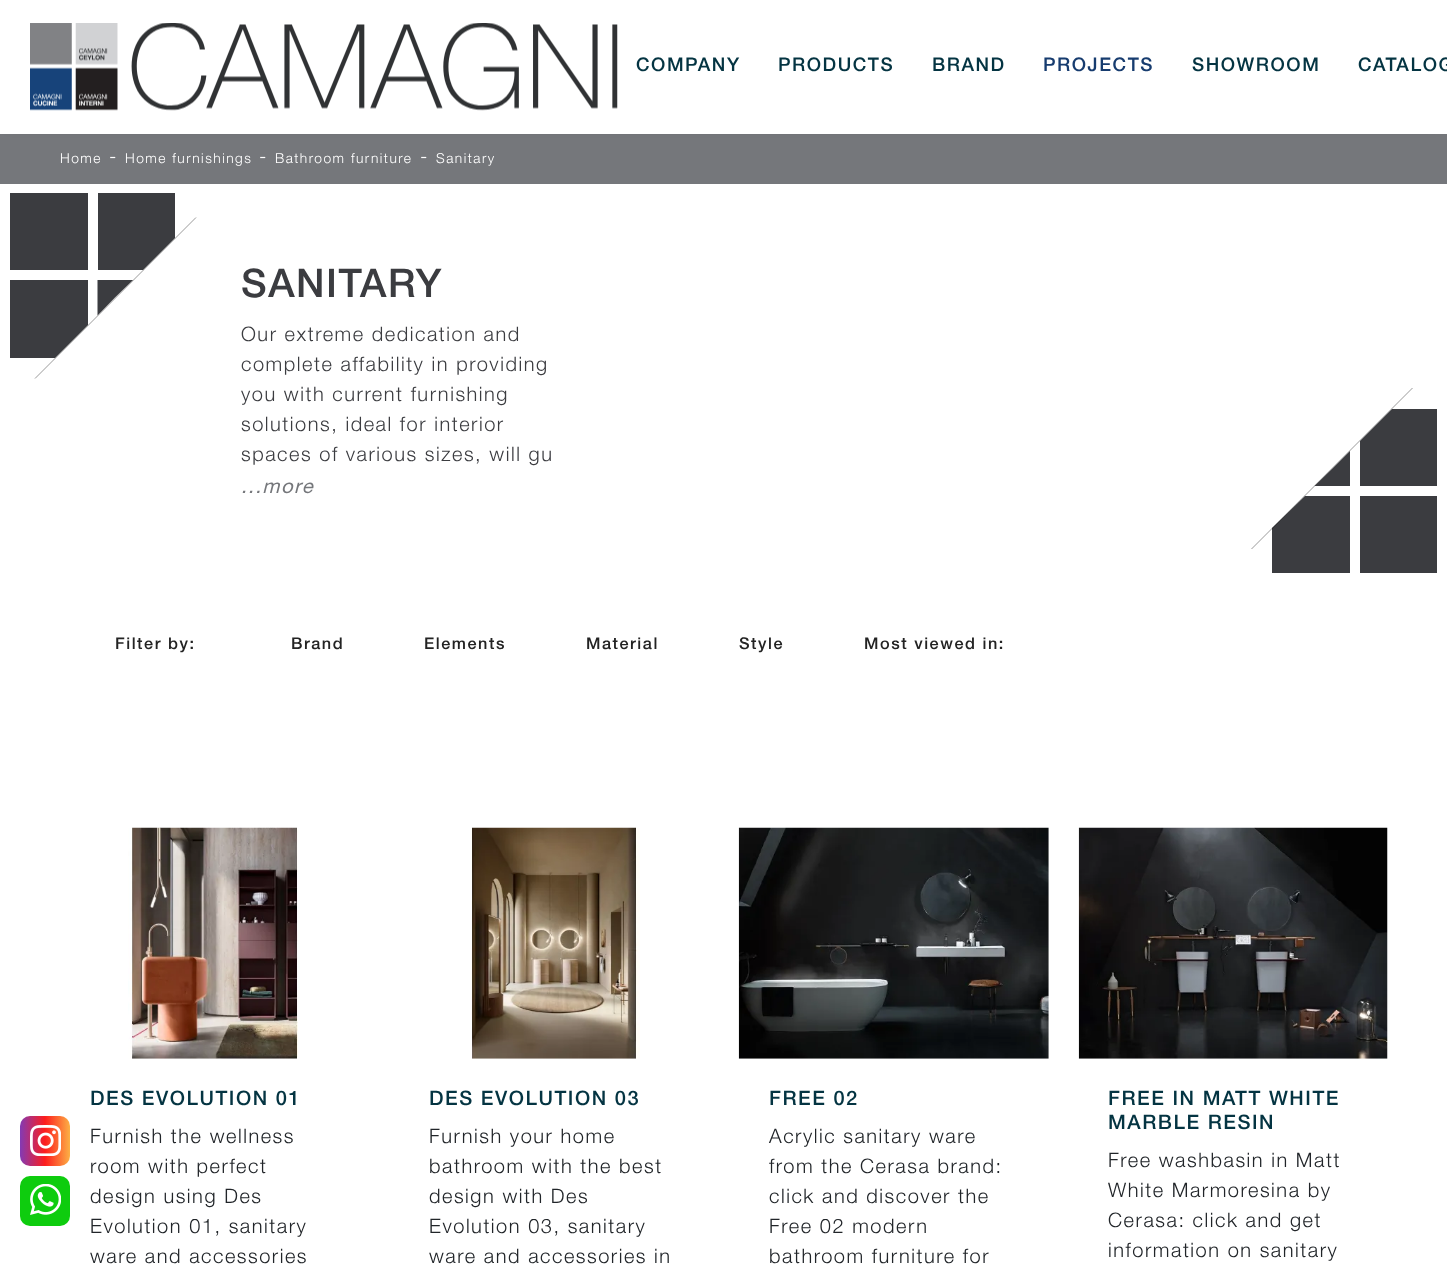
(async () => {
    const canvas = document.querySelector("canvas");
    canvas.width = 1447;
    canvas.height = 1266;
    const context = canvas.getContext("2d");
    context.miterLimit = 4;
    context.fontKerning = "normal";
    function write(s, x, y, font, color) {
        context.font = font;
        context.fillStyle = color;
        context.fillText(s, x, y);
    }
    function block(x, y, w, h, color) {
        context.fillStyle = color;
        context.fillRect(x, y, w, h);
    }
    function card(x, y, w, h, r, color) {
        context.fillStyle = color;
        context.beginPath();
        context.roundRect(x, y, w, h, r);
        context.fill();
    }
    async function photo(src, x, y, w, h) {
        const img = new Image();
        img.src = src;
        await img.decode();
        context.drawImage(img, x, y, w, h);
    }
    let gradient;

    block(0, 0, 1447, 1266, "rgb(255, 255, 255)");
    block(0, 134, 1447, 50, "rgb(117, 119, 123)");
    context.fillStyle = "rgb(51, 51, 51)";
    context.filter = "blur(6px)";
    context.beginPath();
    context.rect(10, 10, 1428, 114);
    context.fill();
    context.filter = "none";
    block(0, 0, 1447, 134, "rgb(255, 255, 255)");
    await photo("media/1.png", 30, 23, 588, 88);
    context.letterSpacing = "1.55px";
    write("COMPANY", 636, 71, "500 18.75px Helvetica Neue", "rgb(4, 52, 66)");
    write("PRODUCTS", 778, 71, "500 18.75px Helvetica Neue", "rgb(4, 52, 66)");
    write("BRAND", 932, 71, "500 18.75px Helvetica Neue", "rgb(4, 52, 66)");
    write("PROJECTS", 1043, 71, "500 18.75px Helvetica Neue", "rgb(23, 60, 111)");
    write("SHOWROOM", 1192, 71, "500 18.75px Helvetica Neue", "rgb(4, 52, 66)");
    write("CATALOG", 1358, 71, "500 18.75px Helvetica Neue", "rgb(4, 52, 66)");
    context.letterSpacing = "1.5px";
    write("Home", 60, 163, "300 13.75px Helvetica Neue", "rgb(255, 255, 255)");
    write("-", 109, 163, "300 20px Helvetica Neue", "rgb(255, 255, 255)");
    write("Home furnishings", 125, 163, "300 13.75px Helvetica Neue", "rgb(255, 255, 255)");
    write("-", 259, 163, "300 20px Helvetica Neue", "rgb(255, 255, 255)");
    write("Bathroom furniture", 275, 163, "300 13.75px Helvetica Neue", "rgb(255, 255, 255)");
    write("-", 420, 163, "300 20px Helvetica Neue", "rgb(255, 255, 255)");
    write("Sanitary", 436, 163, "300 13.75px Helvetica Neue", "rgb(255, 255, 255)");
    block(10, 193, 78, 77, "rgb(59, 60, 64)");
    context.beginPath();
    context.moveTo(175, 193);
    context.lineTo(98, 193);
    context.lineTo(98, 270);
    context.lineTo(143, 270);
    context.lineTo(175, 238);
    context.closePath();
    context.fill();
    context.beginPath();
    context.moveTo(88, 325);
    context.lineTo(88, 280);
    context.lineTo(10, 280);
    context.lineTo(10, 358);
    context.lineTo(55, 358);
    context.closePath();
    context.fill();
    context.beginPath();
    context.moveTo(133, 280);
    context.lineTo(97.5, 280);
    context.lineTo(97.5, 315.5);
    context.lineTo(115, 297.5);
    context.closePath();
    context.fill();
    context.beginPath();
    context.moveTo(196, 217.5);
    context.lineTo(35, 378.5);
    context.strokeStyle = "rgb(0, 0, 0)";
    context.lineWidth = 0.4;
    context.stroke();
    context.letterSpacing = "1.55px";
    write("SANITARY", 241, 297, "500 39.5px Helvetica Neue", "rgb(59, 60, 64)");
    write("Our extreme dedication and", 241, 341, "300 20px Helvetica Neue", "rgb(59, 60, 64)");
    write("complete affability in providing", 241, 371, "300 20px Helvetica Neue", "rgb(59, 60, 64)");
    write("you with current furnishing", 241, 401, "300 20px Helvetica Neue", "rgb(59, 60, 64)");
    write("solutions, ideal for interior", 241, 431, "300 20px Helvetica Neue", "rgb(59, 60, 64)");
    write("spaces of various sizes, will gu", 241, 461, "300 20px Helvetica Neue", "rgb(59, 60, 64)");
    write("...more", 241, 493, "italic 20px Helvetica Neue", "rgb(117, 119, 123)");
    context.fillStyle = "rgb(59, 60, 64)";
    context.beginPath();
    context.moveTo(1314.5, 486);
    context.lineTo(1350, 486);
    context.lineTo(1350, 451);
    context.lineTo(1332.5, 468.5);
    context.closePath();
    context.fill();
    context.beginPath();
    context.moveTo(1360, 441);
    context.lineTo(1360, 486);
    context.lineTo(1437, 486);
    context.lineTo(1437, 409);
    context.lineTo(1392, 409);
    context.closePath();
    context.fill();
    context.beginPath();
    context.moveTo(1272, 573);
    context.lineTo(1350, 573);
    context.lineTo(1350, 496);
    context.lineTo(1305, 496);
    context.lineTo(1272, 528);
    context.closePath();
    context.fill();
    block(1360, 496, 77, 77, "rgb(59, 60, 64)");
    context.beginPath();
    context.moveTo(1251.5, 549);
    context.lineTo(1412.5, 388);
    context.stroke();
    write("Filter by:", 115, 649, "500 16.25px Helvetica Neue", "rgb(35, 35, 35)");
    write("Brand", 291, 649, "500 16.25px Helvetica Neue", "rgb(35, 35, 35)");
    write("Elements", 424, 649, "500 16.25px Helvetica Neue", "rgb(35, 35, 35)");
    write("Material", 586, 649, "500 16.25px Helvetica Neue", "rgb(35, 35, 35)");
    write("Style", 739, 649, "500 16.25px Helvetica Neue", "rgb(35, 35, 35)");
    write("Most viewed in:", 864, 649, "500 16.25px Helvetica Neue", "rgb(35, 35, 35)");
    gradient = context.createLinearGradient(20, 1141, 70, 1141);
    gradient.addColorStop(0, "rgb(131, 58, 180)");
    gradient.addColorStop(0.5, "rgb(253, 29, 29)");
    gradient.addColorStop(1, "rgb(252, 176, 69)");
    context.fillStyle = gradient;
    context.beginPath();
    context.roundRect(20, 1116, 50, 50, 10);
    context.fill();
    await photo("media/2.png", 30, 1125, 31, 31);
    await photo("media/3.png", 128, 827, 170, 232);
    write("DES EVOLUTION 01", 90, 1105, "500 20px Helvetica Neue", "rgb(4, 52, 66)");
    write("Furnish the wellness", 90, 1143, "300 20px Helvetica Neue", "rgb(33, 37, 41)");
    write("room with perfect", 90, 1173, "300 20px Helvetica Neue", "rgb(33, 37, 41)");
    write("design using Des", 90, 1203, "300 20px Helvetica Neue", "rgb(33, 37, 41)");
    write("Evolution 01, sanitary", 90, 1233, "300 20px Helvetica Neue", "rgb(33, 37, 41)");
    write("ware and accessories", 90, 1263, "300 20px Helvetica Neue", "rgb(33, 37, 41)");
    await photo("media/4.png", 471, 827, 169, 232);
    write("DES EVOLUTION 03", 429, 1105, "500 20px Helvetica Neue", "rgb(4, 52, 66)");
    write("Furnish your home", 429, 1143, "300 20px Helvetica Neue", "rgb(33, 37, 41)");
    write("bathroom with the best", 429, 1173, "300 20px Helvetica Neue", "rgb(33, 37, 41)");
    write("design with Des", 429, 1203, "300 20px Helvetica Neue", "rgb(33, 37, 41)");
    write("Evolution 03, sanitary", 429, 1233, "300 20px Helvetica Neue", "rgb(33, 37, 41)");
    write("ware and accessories in", 429, 1263, "300 20px Helvetica Neue", "rgb(33, 37, 41)");
    await photo("media/5.png", 738, 827, 311, 232);
    write("FREE 02", 769, 1105, "500 20px Helvetica Neue", "rgb(4, 52, 66)");
    write("Acrylic sanitary ware", 769, 1143, "300 20px Helvetica Neue", "rgb(33, 37, 41)");
    write("from the Cerasa brand:", 769, 1173, "300 20px Helvetica Neue", "rgb(33, 37, 41)");
    write("click and discover the", 769, 1203, "300 20px Helvetica Neue", "rgb(33, 37, 41)");
    write("Free 02 modern", 769, 1233, "300 20px Helvetica Neue", "rgb(33, 37, 41)");
    write("bathroom furniture for", 769, 1263, "300 20px Helvetica Neue", "rgb(33, 37, 41)");
    await photo("media/6.png", 1078, 827, 310, 232);
    write("FREE IN MATT WHITE", 1108, 1105, "500 20px Helvetica Neue", "rgb(4, 52, 66)");
    write("MARBLE RESIN", 1108, 1129, "500 20px Helvetica Neue", "rgb(4, 52, 66)");
    write("Free washbasin in Matt", 1108, 1167, "300 20px Helvetica Neue", "rgb(33, 37, 41)");
    write("White Marmoresina by", 1108, 1197, "300 20px Helvetica Neue", "rgb(33, 37, 41)");
    write("Cerasa: click and get", 1108, 1227, "300 20px Helvetica Neue", "rgb(33, 37, 41)");
    write("information on sanitary", 1108, 1257, "300 20px Helvetica Neue", "rgb(33, 37, 41)");
    card(20, 1176, 50, 50, 10, "rgb(14, 204, 14)");
    await photo("media/7.png", 30, 1184, 31, 31);
})();
